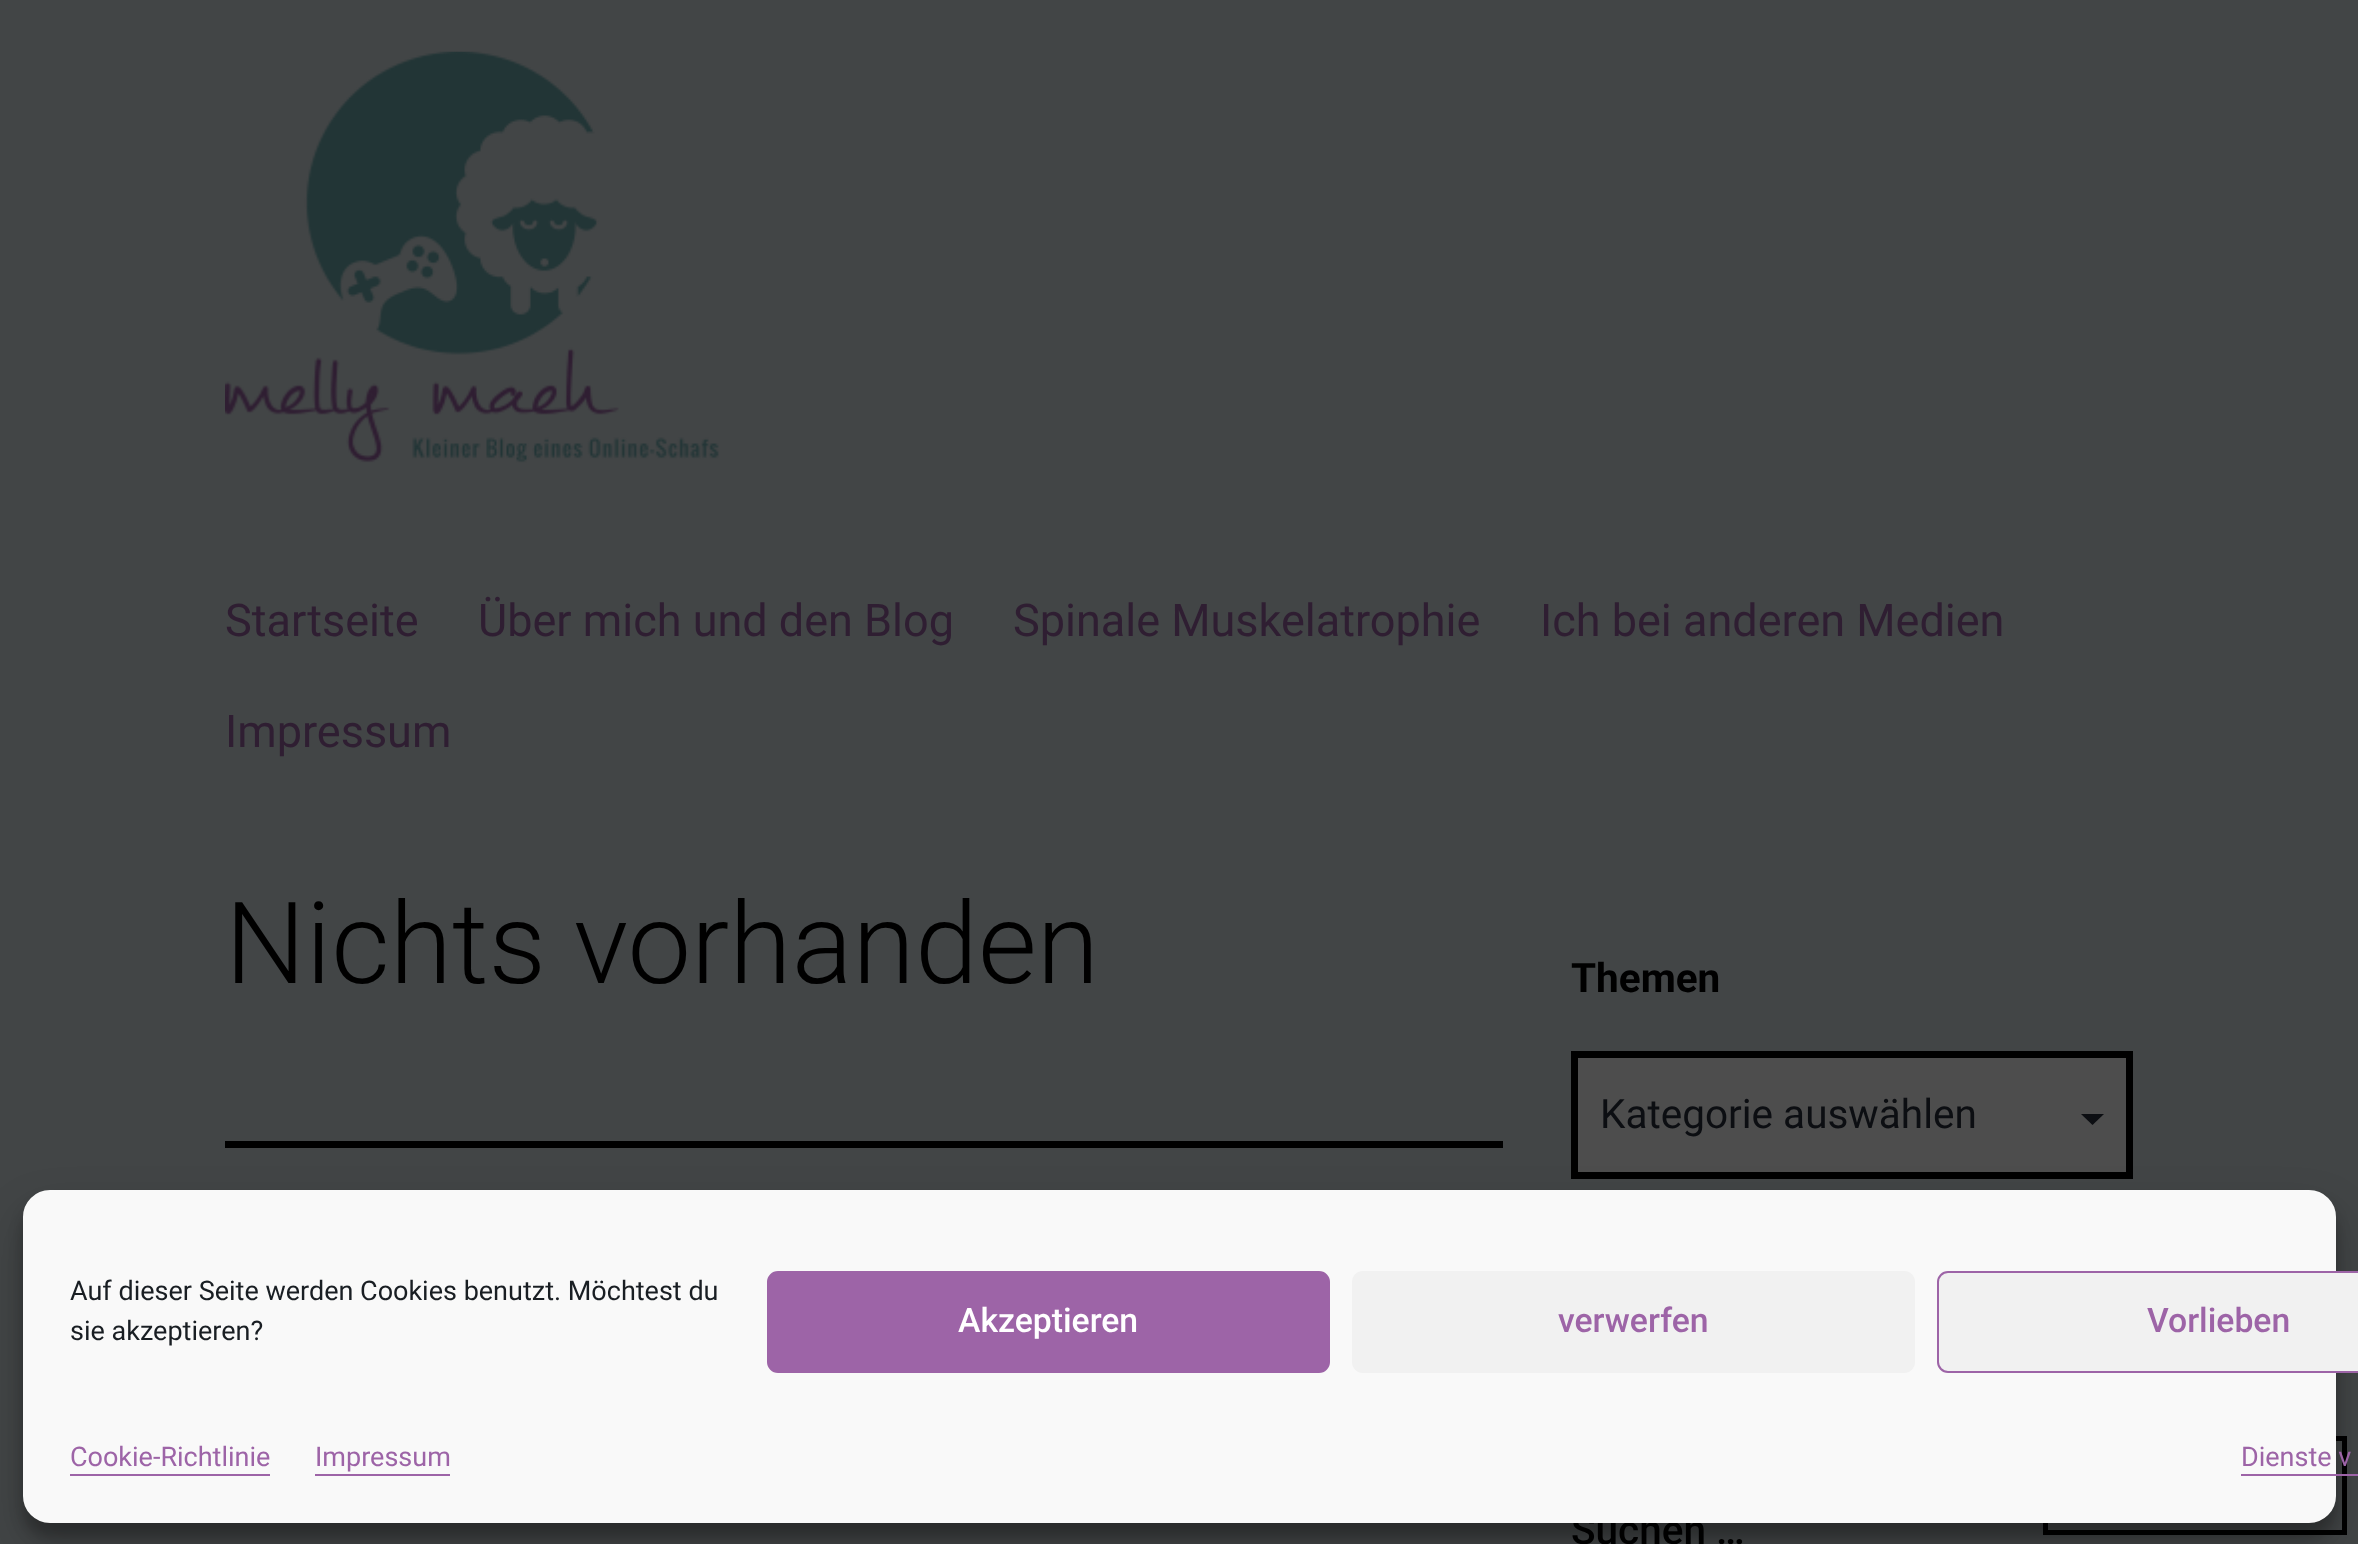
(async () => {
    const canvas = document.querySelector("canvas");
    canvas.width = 2358;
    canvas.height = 1544;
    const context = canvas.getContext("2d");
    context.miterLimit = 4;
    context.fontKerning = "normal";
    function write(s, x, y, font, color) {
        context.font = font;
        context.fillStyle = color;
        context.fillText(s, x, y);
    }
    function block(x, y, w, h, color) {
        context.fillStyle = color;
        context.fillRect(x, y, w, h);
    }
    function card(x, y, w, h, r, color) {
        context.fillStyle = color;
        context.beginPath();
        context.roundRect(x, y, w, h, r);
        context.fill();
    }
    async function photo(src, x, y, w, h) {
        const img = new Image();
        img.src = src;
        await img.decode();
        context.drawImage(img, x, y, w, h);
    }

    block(0, 0, 2358, 1544, "rgb(66, 69, 70)");
    await photo("media/1.png", 225, 51, 494, 412);
    write("Startseite", 225, 636, "45px Roboto", "rgb(47, 30, 50)");
    write("Über mich und den Blog", 478, 636, "45px Roboto", "rgb(47, 30, 50)");
    write("Spinale Muskelatrophie", 1013, 636, "45px Roboto", "rgb(47, 30, 50)");
    write("Ich bei anderen Medien", 1540, 636, "45px Roboto", "rgb(47, 30, 50)");
    write("Impressum", 225, 747, "45px Roboto", "rgb(47, 30, 50)");
    block(225, 1141, 1278, 7, "rgb(0, 0, 0)");
    write("Nichts vorhanden", 225, 983, "300 113.5px Roboto", "rgb(0, 0, 0)");
    write("Themen", 1571, 992, "bold 40.5px Roboto", "rgb(0, 0, 0)");
    block(1578, 1058, 548, 114, "rgb(77, 77, 77)");
    context.fillStyle = "rgb(12, 14, 18)";
    context.beginPath();
    context.moveTo(2081, 1114);
    context.lineTo(2104, 1114);
    context.lineTo(2092.5, 1125);
    context.closePath();
    context.fill();
    context.strokeStyle = "rgb(0, 0, 0)";
    context.lineWidth = 7;
    context.strokeRect(1574.5, 1054.5, 555, 121);
    write("Kategorie auswählen", 1600, 1128, "40.5px Roboto", "rgb(12, 14, 18)");
    write("Suchen …", 1571, 1544, "500 40.5px Roboto", "rgb(0, 0, 0)");
    context.lineWidth = 5;
    context.strokeRect(2045.5, 1438.5, 299, 94);
    context.fillStyle = "rgba(0, 0, 0, 0.23)";
    context.filter = "blur(7px)";
    context.beginPath();
    context.roundRect(23, 1204, 2313, 333, 27);
    context.fill();
    context.filter = "none";
    context.fillStyle = "rgba(0, 0, 0, 0.19)";
    context.filter = "blur(22.5px)";
    context.beginPath();
    context.roundRect(23, 1213, 2313, 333, 27);
    context.fill();
    context.filter = "none";
    context.fillStyle = "rgb(249, 249, 249)";
    context.beginPath();
    context.roundRect(24, 1191, 2311, 331, 26);
    context.fill();
    context.strokeStyle = "rgb(249, 249, 249)";
    context.lineWidth = 2;
    context.stroke();
    write("Auf dieser Seite werden Cookies benutzt. Möchtest du", 70, 1300, "27px Roboto", "rgb(25, 30, 35)");
    write("sie akzeptieren?", 70, 1340, "27px Roboto", "rgb(25, 30, 35)");
    context.fillStyle = "rgb(157, 100, 167)";
    context.beginPath();
    context.roundRect(768, 1272, 561, 100, 10);
    context.fill();
    context.strokeStyle = "rgb(157, 100, 167)";
    context.stroke();
    write("Akzeptieren", 958, 1332, "500 33.75px Roboto", "rgb(255, 255, 255)");
    card(1352, 1271, 563, 102, 11, "rgb(241, 241, 241)");
    write("verwerfen", 1558, 1332, "500 33.75px Roboto", "rgb(157, 100, 167)");
    context.fillStyle = "rgb(241, 241, 241)";
    context.beginPath();
    context.roundRect(1938, 1272, 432, 100, 10);
    context.fill();
    context.stroke();
    write("Vorlieben", 2147, 1332, "500 33.75px Roboto", "rgb(157, 100, 167)");
    write("Cookie-Richtlinie", 70, 1466, "27px Roboto", "rgb(157, 100, 167)");
    block(70, 1474, 200, 2, "rgb(157, 100, 167)");
    write("Impressum", 315, 1466, "27px Roboto", "rgb(157, 100, 167)");
    block(315, 1474, 135, 2, "rgb(157, 100, 167)");
    write("Dienste v", 2241, 1466, "27px Roboto", "rgb(157, 100, 167)");
    block(2241, 1474, 117, 2, "rgb(157, 100, 167)");
})();
